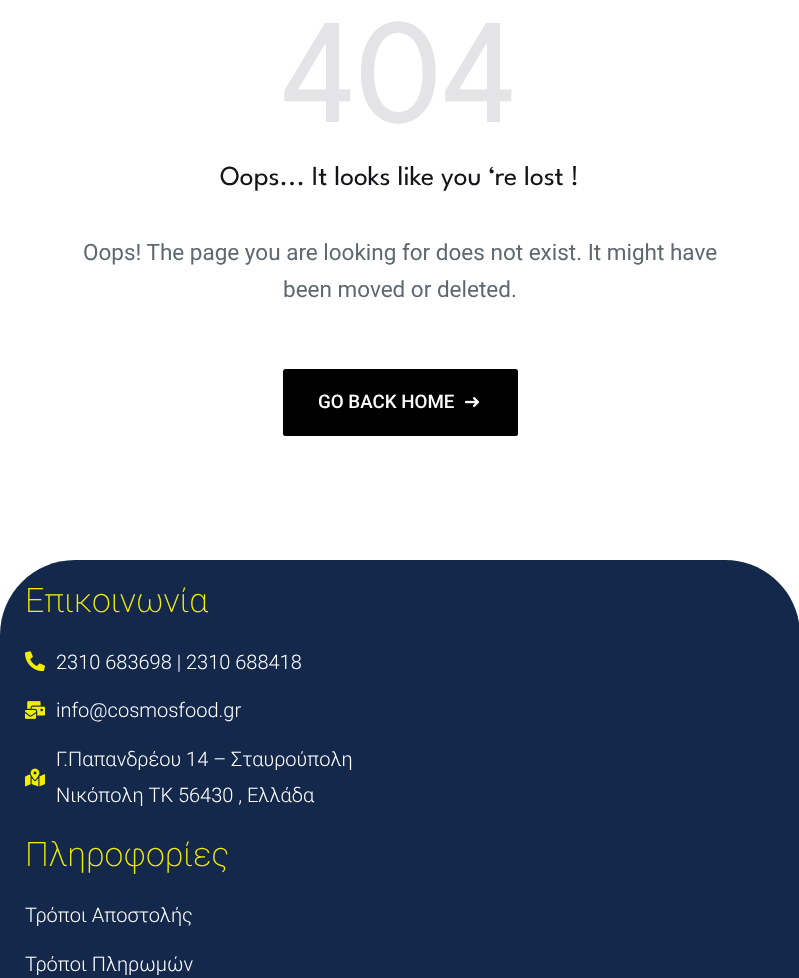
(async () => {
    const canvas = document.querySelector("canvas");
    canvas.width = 799;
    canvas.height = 978;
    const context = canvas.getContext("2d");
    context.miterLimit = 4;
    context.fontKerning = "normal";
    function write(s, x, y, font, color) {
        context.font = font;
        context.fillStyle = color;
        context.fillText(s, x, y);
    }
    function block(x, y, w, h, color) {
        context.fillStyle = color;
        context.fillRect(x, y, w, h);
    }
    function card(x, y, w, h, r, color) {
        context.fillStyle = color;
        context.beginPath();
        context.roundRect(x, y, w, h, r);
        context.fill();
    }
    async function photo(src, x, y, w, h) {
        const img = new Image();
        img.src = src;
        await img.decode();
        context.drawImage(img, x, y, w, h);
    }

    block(0, 0, 799, 978, "rgb(255, 255, 255)");
    write("404", 282, 122, "150px League Spartan", "rgb(228, 227, 229)");
    write("Oops... It looks like you ‘re lost !", 220, 185, "27.5px League Spartan", "rgb(18, 20, 22)");
    write("Oops! The page you are looking for does not exist. It might have", 83, 260, "22.5px Roboto", "rgb(95, 104, 113)");
    write("been moved or deleted.", 283, 297, "22.5px Roboto", "rgb(95, 104, 113)");
    card(283, 369, 235, 67, 2.5, "rgb(0, 0, 0)");
    write("GO BACK HOME", 318, 408, "500 18.75px Roboto", "rgb(255, 255, 255)");
    await photo("media/1.png", 465, 397, 15, 11);
    context.fillStyle = "rgb(19, 40, 75)";
    context.beginPath();
    context.moveTo(75, 560);
    context.lineTo(725, 560);
    context.bezierCurveTo(766.5, 560, 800, 593.5, 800, 635);
    context.lineTo(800, 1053);
    context.lineTo(0, 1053);
    context.lineTo(0, 635);
    context.bezierCurveTo(0, 593.5, 33.5, 560, 75, 560);
    context.closePath();
    context.fill();
    write("Επικοινωνία", 25, 612, "200 33.75px Roboto", "rgb(242, 237, 3)");
    await photo("media/2.png", 25, 651, 20, 20);
    write("2310 683698 | 2310 688418", 56, 669, "300 20px Roboto", "rgb(255, 255, 255)");
    await photo("media/3.png", 25, 701, 20, 18);
    write("info@cosmosfood.gr", 56, 717, "300 20px Roboto", "rgb(255, 255, 255)");
    await photo("media/4.png", 25, 768, 20, 19);
    write("Γ.Παπανδρέου 14 – Σταυρούπολη", 56, 766, "300 20px Roboto", "rgb(255, 255, 255)");
    write("Νικόπολη ΤΚ 56430 , Ελλάδα", 56, 802, "300 20px Roboto", "rgb(255, 255, 255)");
    write("Πληροφορίες", 25, 866, "200 33.75px Roboto", "rgb(242, 237, 3)");
    write("Τρόποι Αποστολής", 25, 922, "300 20px Roboto", "rgb(255, 255, 255)");
    write("Τρόποι Πληρωμών", 25, 971, "300 20px Roboto", "rgb(255, 255, 255)");
})();
